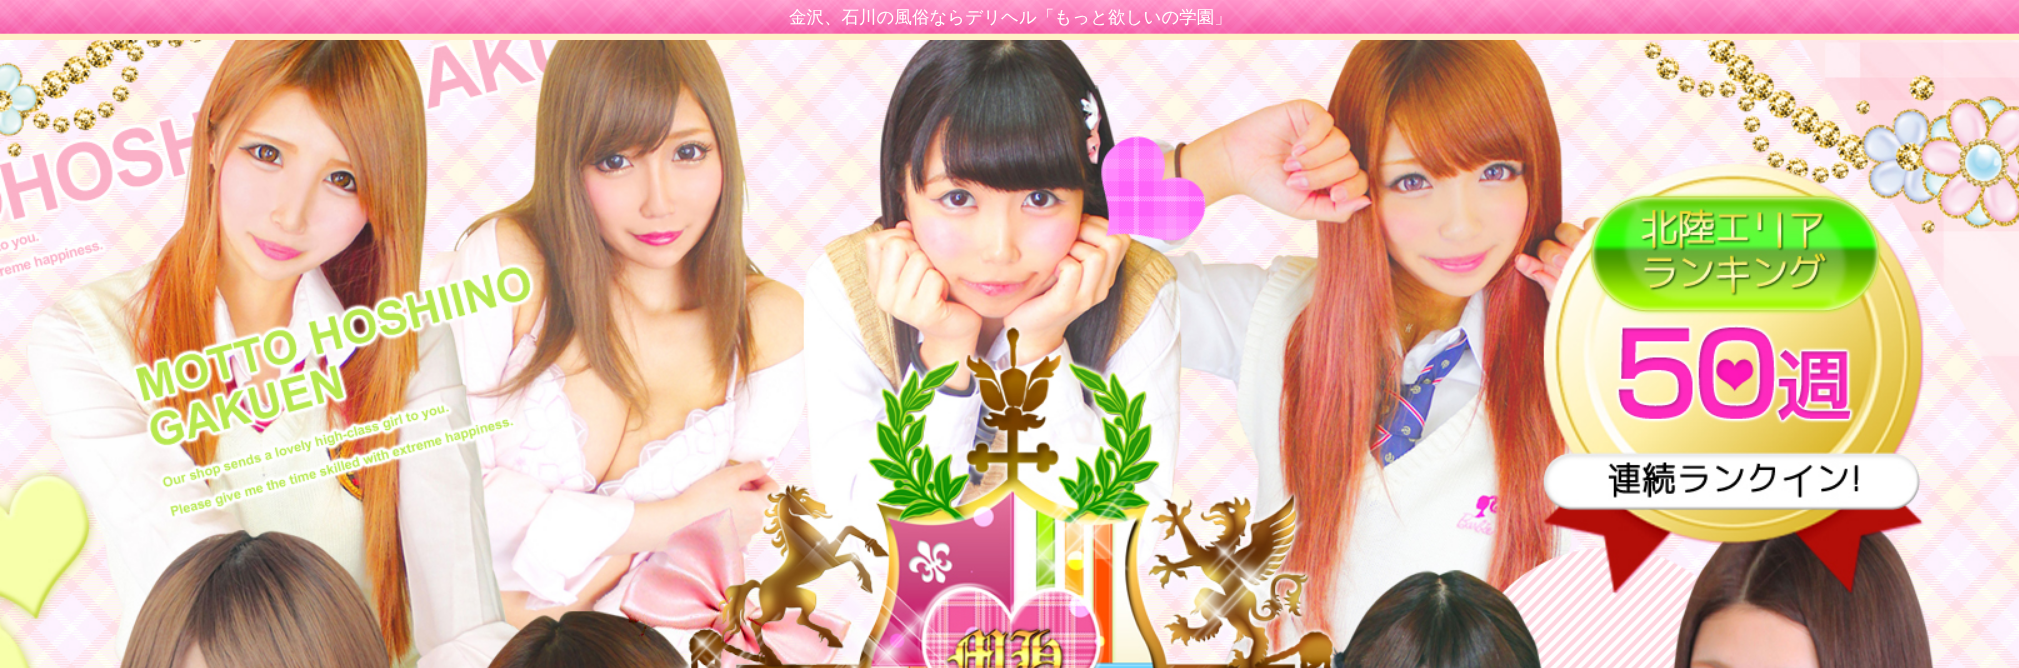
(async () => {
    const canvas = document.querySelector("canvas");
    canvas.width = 2019;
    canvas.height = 668;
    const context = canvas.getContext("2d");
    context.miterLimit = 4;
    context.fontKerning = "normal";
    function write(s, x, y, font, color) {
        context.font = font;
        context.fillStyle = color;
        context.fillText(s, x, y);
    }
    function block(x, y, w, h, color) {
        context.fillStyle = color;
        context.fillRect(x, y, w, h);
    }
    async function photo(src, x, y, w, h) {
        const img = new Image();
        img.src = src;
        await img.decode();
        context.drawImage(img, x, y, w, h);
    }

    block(0, 0, 2019, 668, "rgb(255, 255, 255)");
    await photo("media/1.png", 0, 0, 2019, 40);
    write("金沢、石川の風俗ならデリヘル「もっと欲しいの学園」", 789, 23, "500 17.5px WenQuanYi Zen Hei", "rgb(255, 255, 255)");
    await photo("media/2.png", 0, 40, 2019, 628);
})();
